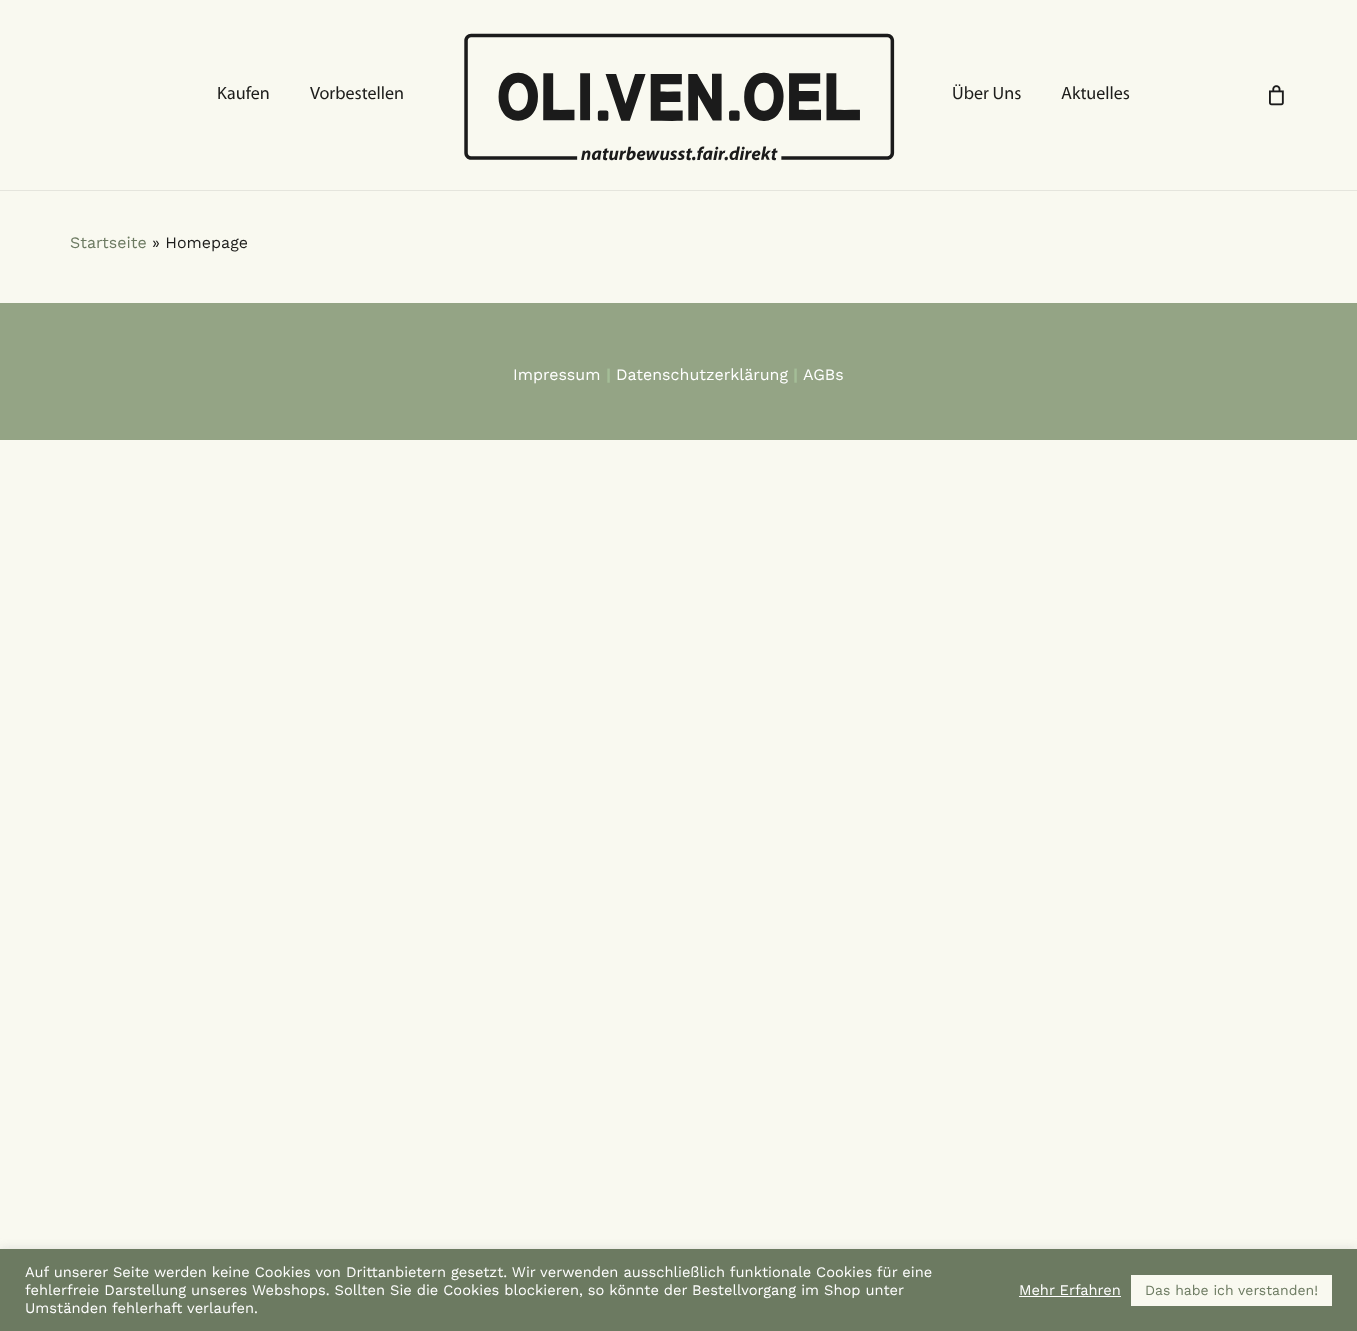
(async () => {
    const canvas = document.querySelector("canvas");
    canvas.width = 1357;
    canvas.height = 1331;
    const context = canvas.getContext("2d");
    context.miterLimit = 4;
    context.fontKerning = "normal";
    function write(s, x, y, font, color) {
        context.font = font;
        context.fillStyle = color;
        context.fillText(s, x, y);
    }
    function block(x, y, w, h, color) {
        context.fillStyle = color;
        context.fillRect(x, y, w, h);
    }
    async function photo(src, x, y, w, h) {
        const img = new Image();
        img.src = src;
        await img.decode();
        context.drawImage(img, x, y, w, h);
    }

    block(0, 0, 1357, 1331, "rgb(249, 249, 240)");
    block(0, 190, 1357, 1, "rgb(229, 229, 221)");
    await photo("media/1.png", 464, 33, 431, 128);
    write("Kaufen", 217, 99, "18px Myriad", "rgb(29, 29, 27)");
    write("Vorbestellen", 310, 99, "18px Myriad", "rgb(29, 29, 27)");
    write("Über Uns", 952, 99, "18px Myriad", "rgb(29, 29, 27)");
    write("Aktuelles", 1061, 99, "18px Myriad", "rgb(29, 29, 27)");
    await photo("media/2.png", 1269, 85, 15, 21);
    write("Startseite", 70, 248, "16px Work Sans", "rgb(108, 122, 97)");
    write("» Homepage", 152, 248, "16px Work Sans", "rgb(29, 29, 27)");
    block(0, 303, 1357, 137, "rgb(148, 164, 133)");
    write("Impressum", 513, 380, "16px Work Sans", "rgb(255, 255, 255)");
    write("|", 606, 380, "bold 16px Work Sans", "rgb(164, 189, 151)");
    write("Datenschutzerklärung", 616, 380, "16px Work Sans", "rgb(255, 255, 255)");
    write("|", 793, 380, "bold 16px Work Sans", "rgb(164, 189, 151)");
    write("AGBs", 803, 380, "16px Work Sans", "rgb(255, 255, 255)");
    context.fillStyle = "rgba(172, 171, 171, 0.3)";
    context.filter = "blur(5px)";
    context.beginPath();
    context.rect(0, 1248, 1357, 82);
    context.fill();
    context.filter = "none";
    block(0, 1249, 1357, 82, "rgb(108, 122, 97)");
    write("Auf unserer Seite werden keine Cookies von Drittanbietern gesetzt. Wir verwenden ausschließlich funktionale Cookies für eine", 25, 1277, "14.67px Work Sans", "rgb(255, 255, 255)");
    write("fehlerfreie Darstellung unseres Webshops. Sollten Sie die Cookies blockieren, so könnte der Bestellvorgang im Shop unter", 25, 1295, "14.67px Work Sans", "rgb(255, 255, 255)");
    write("Umständen fehlerhaft verlaufen.", 25, 1313, "14.67px Work Sans", "rgb(255, 255, 255)");
    write("Mehr Erfahren", 1019, 1295, "14.67px Work Sans", "rgb(255, 255, 255)");
    block(1019, 1296, 102, 1, "rgb(255, 255, 255)");
    block(1131, 1275, 201, 31, "rgb(249, 249, 240)");
    write("Das habe ich verstanden!", 1145, 1295, "14px Work Sans", "rgb(108, 122, 97)");
})();
